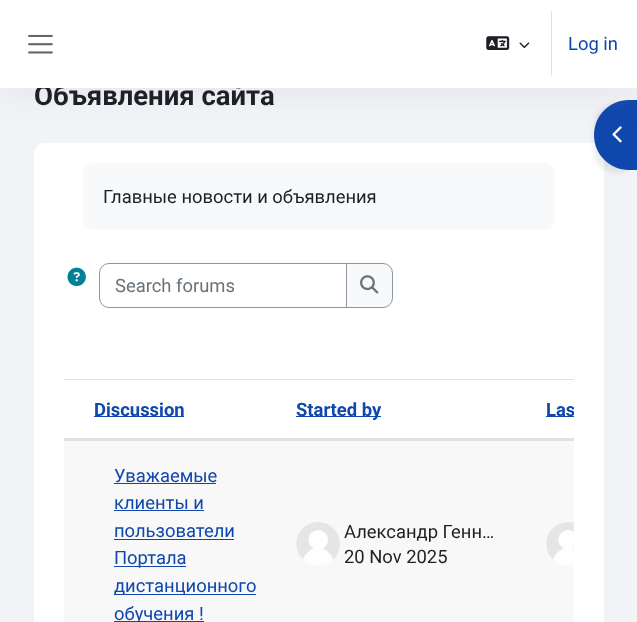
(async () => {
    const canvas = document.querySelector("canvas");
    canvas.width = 637;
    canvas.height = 622;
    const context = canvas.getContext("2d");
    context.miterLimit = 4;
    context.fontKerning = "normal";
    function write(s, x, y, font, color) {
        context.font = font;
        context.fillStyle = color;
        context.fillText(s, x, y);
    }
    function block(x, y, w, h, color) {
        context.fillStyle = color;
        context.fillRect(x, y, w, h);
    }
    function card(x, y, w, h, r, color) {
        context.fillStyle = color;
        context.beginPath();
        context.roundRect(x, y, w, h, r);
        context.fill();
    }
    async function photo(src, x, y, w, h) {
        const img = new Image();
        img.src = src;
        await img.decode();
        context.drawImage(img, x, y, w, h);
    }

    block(0, 0, 637, 622, "rgb(242, 243, 247)");
    card(34, 143, 570, 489, 10, "rgb(255, 255, 255)");
    context.fillStyle = "rgba(0, 0, 0, 0.07)";
    context.filter = "blur(2.5px)";
    context.beginPath();
    context.roundRect(594, 103, 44, 70, 35);
    context.fill();
    context.filter = "none";
    context.fillStyle = "rgb(15, 71, 173)";
    context.beginPath();
    context.moveTo(629, 100);
    context.lineTo(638, 100);
    context.lineTo(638, 170);
    context.lineTo(629, 170);
    context.bezierCurveTo(609.5, 170, 594, 154.5, 594, 135);
    context.bezierCurveTo(594, 115.5, 609.5, 100, 629, 100);
    context.closePath();
    context.fill();
    await photo("media/4.png", 612, 126, 10, 17);
    context.fillStyle = "rgba(140, 152, 164, 0.13)";
    context.filter = "blur(15px)";
    context.beginPath();
    context.rect(0, 8, 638, 87);
    context.fill();
    context.filter = "none";
    write("Объявления сайта", 34, 105, "bold 27.5px Roboto", "rgb(29, 33, 37)");
    block(0, 0, 637, 88, "rgb(255, 255, 255)");
    await photo("media/1.png", 28, 34, 25, 20);
    await photo("media/2.png", 486, 36, 24, 14);
    await photo("media/3.png", 519, 42, 11, 6);
    block(551, 11, 1, 65, "rgb(222, 226, 230)");
    write("Log in", 568, 50, "18.4px Roboto", "rgb(15, 71, 173)");
    card(83, 163, 472, 67, 10, "rgb(248, 249, 250)");
    write("Главные новости и объявления", 103, 203, "18.4px Roboto", "rgb(29, 33, 37)");
    await photo("media/5.png", 67, 267, 19, 19);
    context.beginPath();
    context.roundRect(99.5, 263.5, 248, 44, [9.5, 0, 0, 9.5]);
    context.strokeStyle = "rgb(143, 149, 158)";
    context.stroke();
    write("Search forums", 115, 292, "18.4px Roboto", "rgb(106, 115, 123)");
    context.fillStyle = "rgb(248, 249, 250)";
    context.beginPath();
    context.roundRect(346.5, 263.5, 46, 44, [0, 9.5, 9.5, 0]);
    context.fill();
    context.stroke();
    await photo("media/6.png", 360, 275, 19, 19);
    block(94, 416, 90, 1, "rgb(15, 71, 173)");
    write("Discussion", 94, 416, "bold 18.4px Roboto", "rgb(15, 71, 173)");
    block(296, 416, 85, 1, "rgb(15, 71, 173)");
    write("Started by", 296, 416, "bold 18.4px Roboto", "rgb(15, 71, 173)");
    block(64, 379, 510, 1, "rgb(222, 226, 230)");
    block(64, 438, 510, 3, "rgb(222, 226, 230)");
    block(546, 416, 28, 1, "rgb(15, 71, 173)");
    context.save();
    context.beginPath();
    context.rect(64, 379, 510, 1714);
    context.clip();
    write("Las", 546, 416, "bold 18.4px Roboto", "rgb(15, 71, 173)");
    context.restore();
    block(64, 441, 510, 181, "rgb(248, 248, 248)");
    write("Уважаемые", 114, 482, "18.4px Roboto", "rgb(15, 71, 173)");
    block(114, 483, 102, 1, "rgb(15, 71, 173)");
    write("клиенты и", 114, 509, "18.4px Roboto", "rgb(15, 71, 173)");
    block(114, 510, 90, 1, "rgb(15, 71, 173)");
    write("пользователи", 114, 537, "18.4px Roboto", "rgb(15, 71, 173)");
    block(114, 539, 120, 1, "rgb(15, 71, 173)");
    block(114, 566, 72, 1, "rgb(15, 71, 173)");
    write("Портала", 114, 564, "18.4px Roboto", "rgb(15, 71, 173)");
    block(114, 594, 142, 1, "rgb(15, 71, 173)");
    write("дистанционного", 114, 592, "18.4px Roboto", "rgb(15, 71, 173)");
    block(114, 621, 90, 1, "rgb(15, 71, 173)");
    write("обучения !", 114, 620, "18.4px Roboto", "rgb(15, 71, 173)");
    await photo("media/7.png", 296, 522, 44, 43);
    write("Александр Генн…", 344, 538, "18.4px Roboto", "rgb(29, 33, 37)");
    write("20 Nov 2025", 344, 563, "18.4px Roboto", "rgb(29, 33, 37)");
    await photo("media/8.png", 546, 522, 28, 43);
})();
